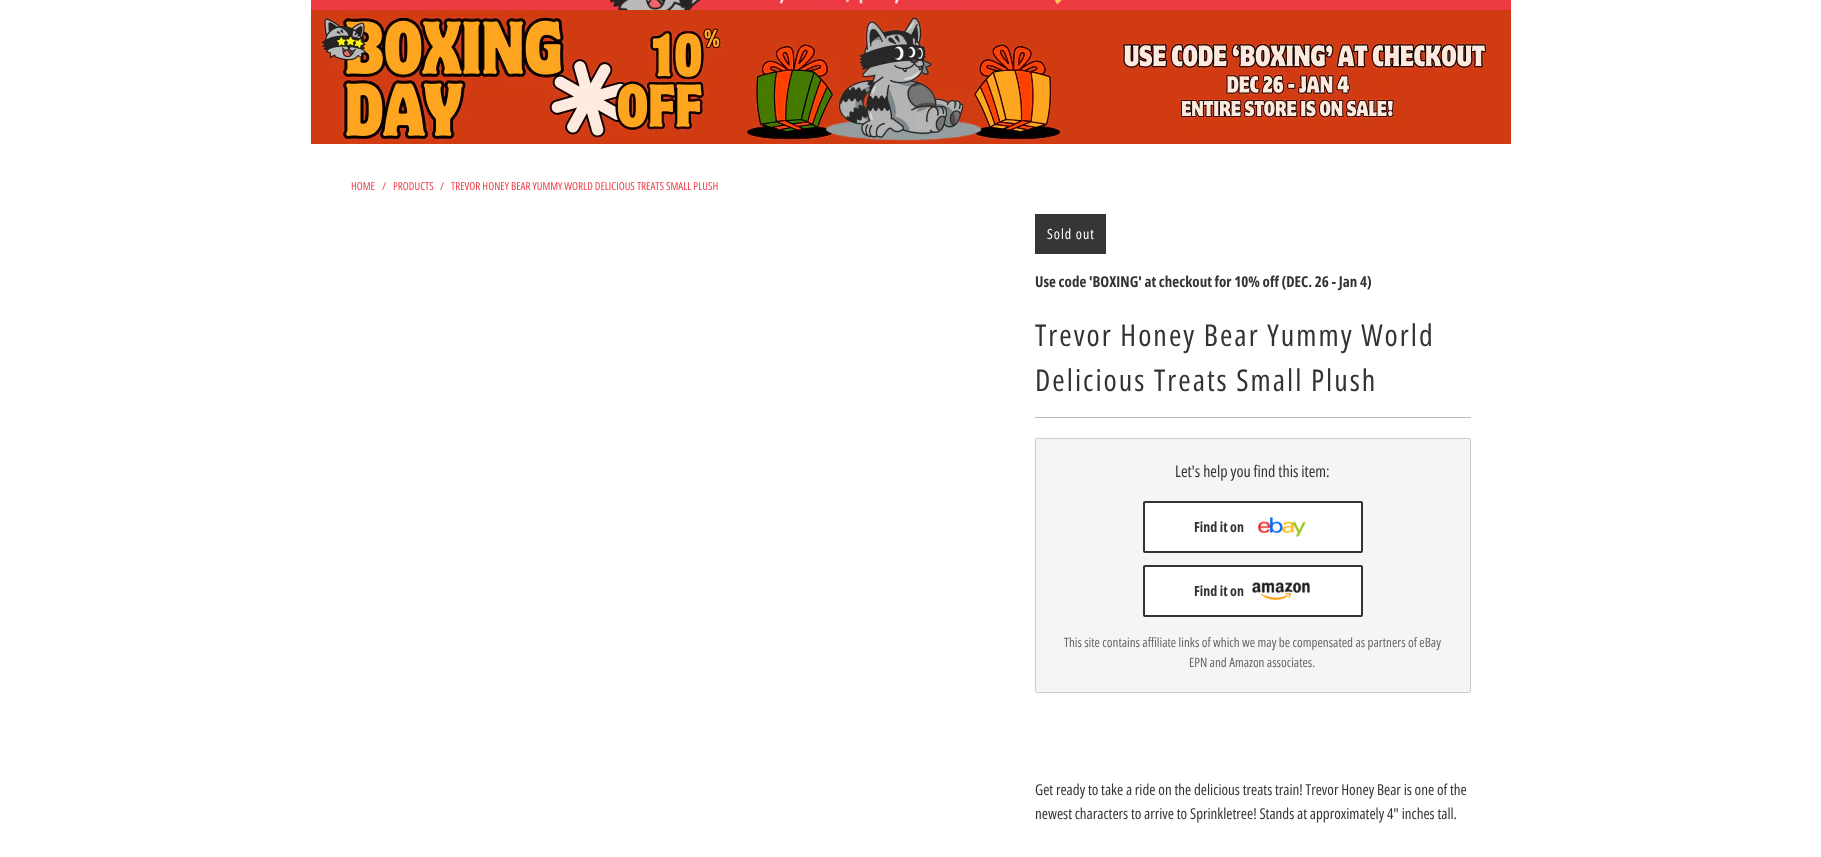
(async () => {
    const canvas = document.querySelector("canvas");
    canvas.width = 1821;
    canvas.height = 857;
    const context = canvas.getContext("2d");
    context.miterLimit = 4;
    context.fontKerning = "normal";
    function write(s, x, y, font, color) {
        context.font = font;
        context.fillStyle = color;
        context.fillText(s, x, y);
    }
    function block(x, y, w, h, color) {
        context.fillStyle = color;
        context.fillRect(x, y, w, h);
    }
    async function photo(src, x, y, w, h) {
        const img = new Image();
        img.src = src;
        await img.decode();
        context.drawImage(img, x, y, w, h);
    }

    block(0, 0, 1821, 857, "rgb(255, 255, 255)");
    await photo("media/1.png", 311, 0, 1200, 10);
    await photo("media/2.png", 311, 10, 1200, 134);
    write("HOME", 351, 190, "11px Open Sans Condensed", "rgb(238, 58, 67)");
    write("/", 382, 190, "11px Open Sans Condensed", "rgb(238, 58, 67)");
    write("PRODUCTS", 393, 190, "11px Open Sans Condensed", "rgb(238, 58, 67)");
    write("/", 440, 190, "11px Open Sans Condensed", "rgb(238, 58, 67)");
    write("TREVOR HONEY BEAR YUMMY WORLD DELICIOUS TREATS SMALL PLUSH", 451, 190, "11px Open Sans Condensed", "rgb(238, 58, 67)");
    block(1035, 214, 71, 40, "rgb(54, 54, 54)");
    context.letterSpacing = "1px";
    write("Sold out", 1047, 239, "14px Open Sans Condensed", "rgb(255, 255, 255)");
    context.letterSpacing = "0px";
    write("Use code 'BOXING' at checkout for 10% off (DEC. 26 - Jan 4)", 1035, 287, "bold 15px Open Sans Condensed", "rgb(51, 51, 51)");
    context.letterSpacing = "2px";
    write("Trevor Honey Bear Yummy World", 1035, 346, "30px Open Sans Condensed", "rgb(51, 51, 51)");
    write("Delicious Treats Small Plush", 1035, 391, "30px Open Sans Condensed", "rgb(51, 51, 51)");
    block(1035, 417, 436, 1, "rgb(186, 186, 186)");
    context.fillStyle = "rgb(245, 245, 245)";
    context.beginPath();
    context.roundRect(1035.5, 438.5, 435, 254, 1.5);
    context.fill();
    context.strokeStyle = "rgb(204, 204, 204)";
    context.stroke();
    context.letterSpacing = "0px";
    write("Let's help you find this item:", 1175, 477, "16px Open Sans Condensed", "rgb(51, 51, 51)");
    context.fillStyle = "rgb(255, 255, 255)";
    context.beginPath();
    context.roundRect(1144, 502, 218, 50, 1);
    context.fill();
    context.strokeStyle = "rgb(51, 51, 51)";
    context.lineWidth = 2;
    context.stroke();
    write("Find it on", 1194, 532, "bold 14px Open Sans Condensed", "rgb(51, 51, 51)");
    await photo("media/3.png", 1258, 517, 48, 20);
    context.fillStyle = "rgb(255, 255, 255)";
    context.beginPath();
    context.roundRect(1144, 566, 218, 50, 1);
    context.fill();
    context.stroke();
    write("Find it on", 1194, 596, "bold 14px Open Sans Condensed", "rgb(51, 51, 51)");
    await photo("media/4.png", 1251, 582, 60, 19);
    write("This site contains affiliate links of which we may be compensated as partners of eBay", 1064, 647, "13px Open Sans Condensed", "rgb(102, 102, 102)");
    write("EPN and Amazon associates.", 1189, 667, "13px Open Sans Condensed", "rgb(102, 102, 102)");
    write("Get ready to take a ride on the delicious treats train! Trevor Honey Bear is one of the", 1035, 795, "15px Open Sans Condensed", "rgb(51, 51, 51)");
    write("newest characters to arrive to Sprinkletree! Stands at approximately 4\" inches tall.", 1035, 819, "15px Open Sans Condensed", "rgb(51, 51, 51)");
})();
